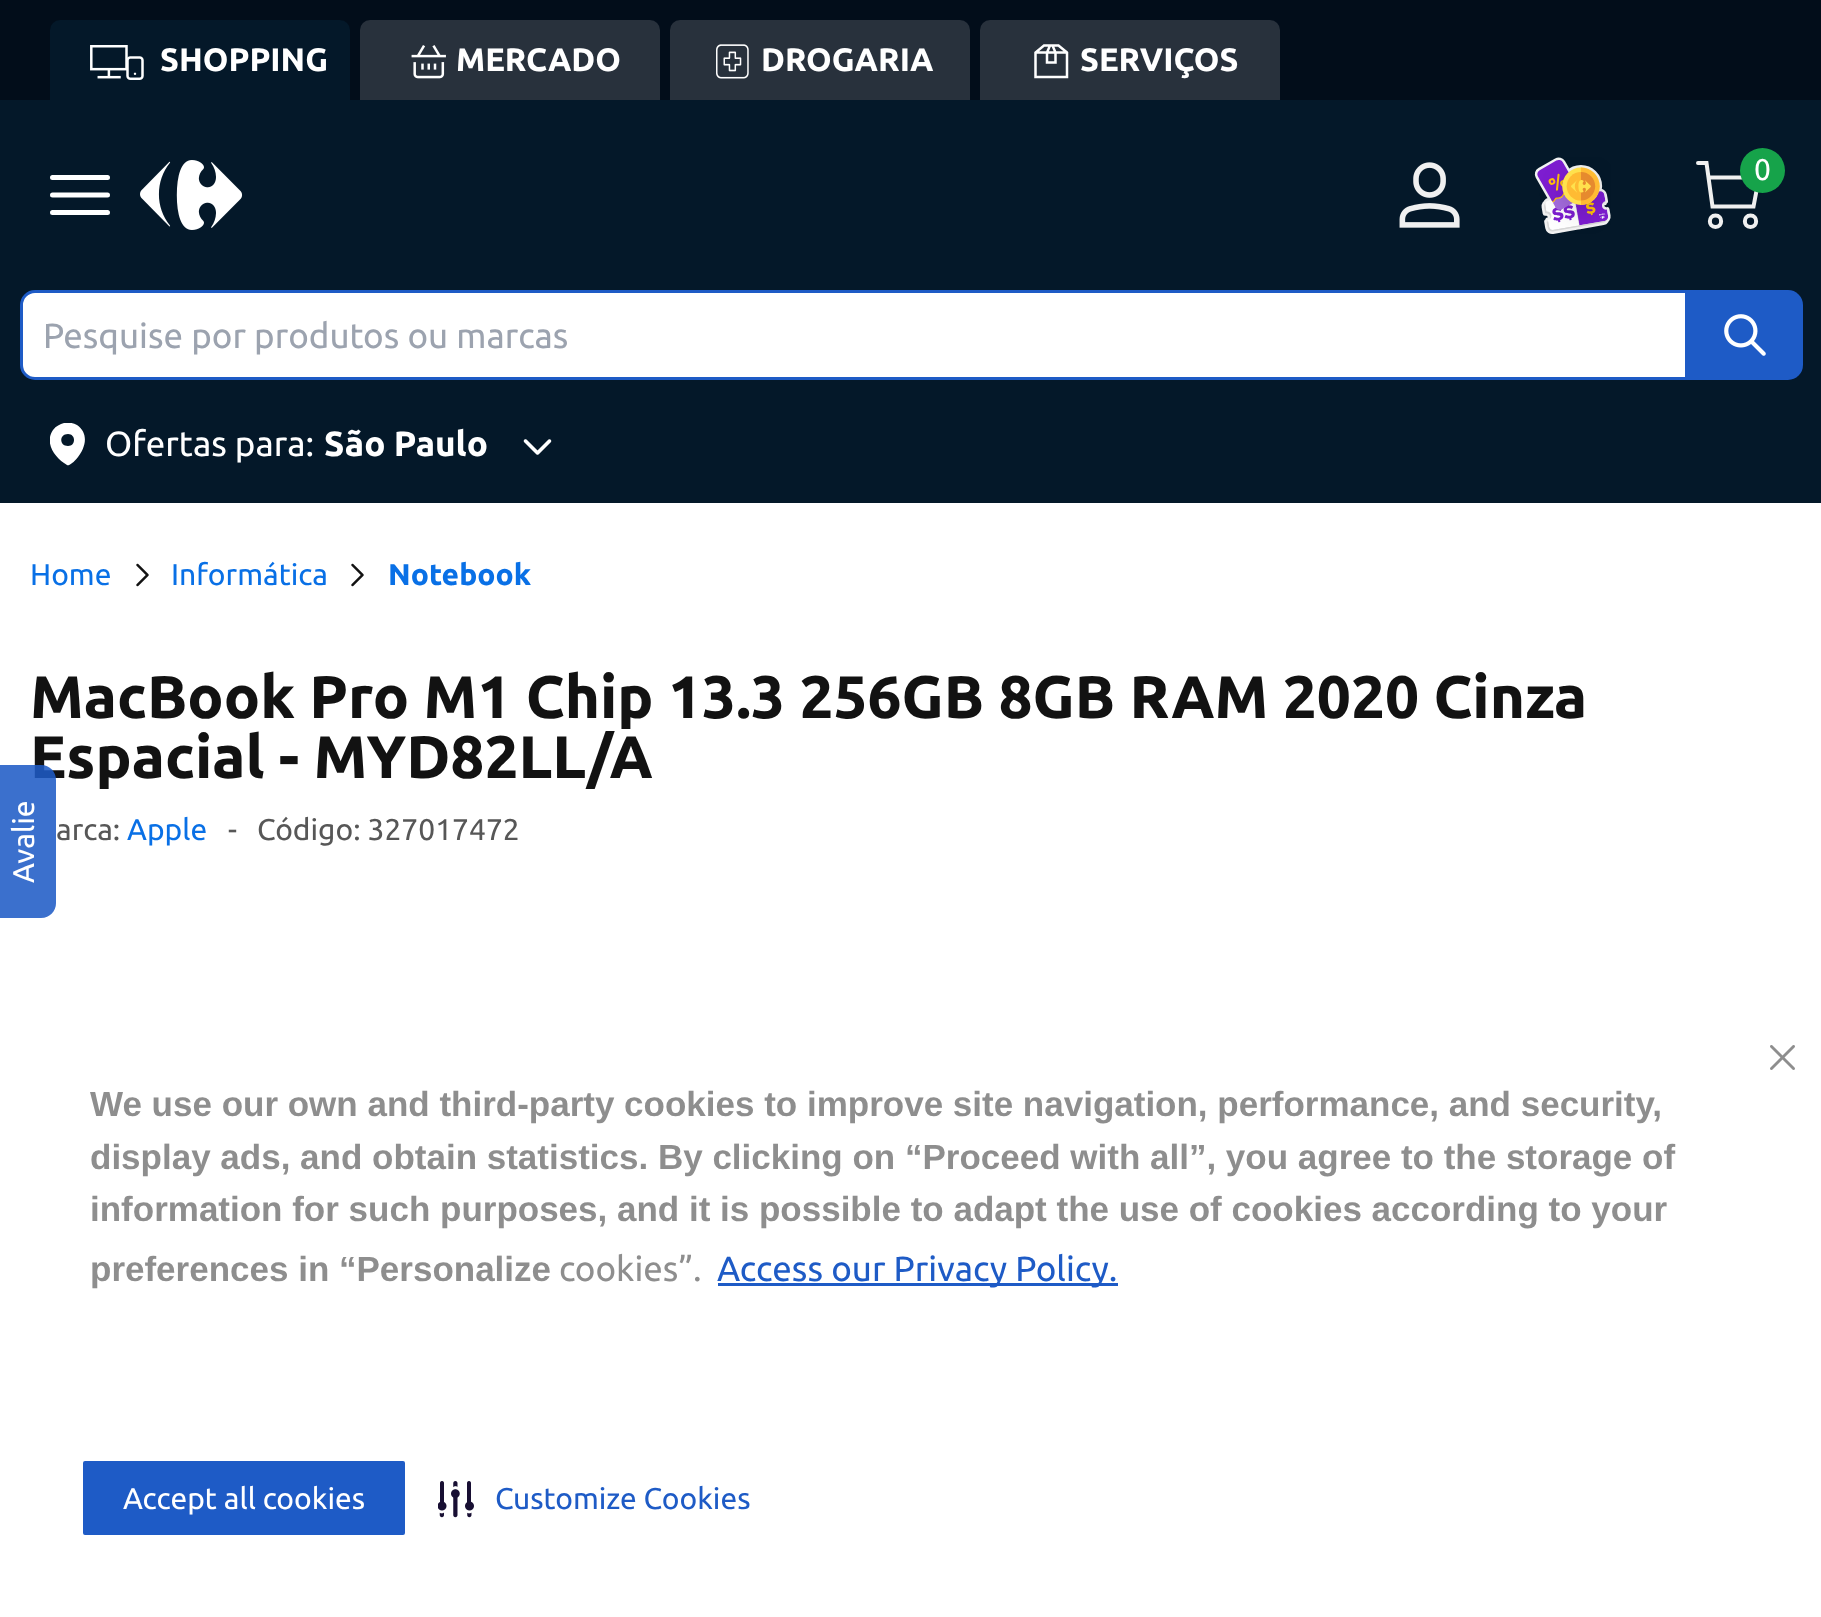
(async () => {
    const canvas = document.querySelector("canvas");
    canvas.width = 1821;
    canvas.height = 1617;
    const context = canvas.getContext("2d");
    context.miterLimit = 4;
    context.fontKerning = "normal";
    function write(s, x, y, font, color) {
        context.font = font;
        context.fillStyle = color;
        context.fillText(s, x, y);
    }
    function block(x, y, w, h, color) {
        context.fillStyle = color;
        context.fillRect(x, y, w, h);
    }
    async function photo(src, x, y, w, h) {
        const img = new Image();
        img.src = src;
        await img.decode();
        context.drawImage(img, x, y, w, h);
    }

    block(0, 0, 1821, 1617, "rgb(255, 255, 255)");
    block(0, 100, 1821, 403, "rgb(4, 24, 41)");
    block(0, 0, 1821, 100, "rgb(2, 13, 26)");
    context.fillStyle = "rgb(4, 24, 41)";
    context.beginPath();
    context.roundRect(50, 20, 300, 80, [10, 10, 0, 0]);
    context.fill();
    await photo("media/1.png", 90, 45, 54, 35);
    write("SHOPPING", 160, 71, "bold 32.5px Ubuntu", "rgb(255, 255, 255)");
    context.fillStyle = "rgb(40, 49, 60)";
    context.beginPath();
    context.roundRect(360, 20, 300, 80, [10, 10, 0, 0]);
    context.fill();
    await photo("media/2.png", 411, 45, 35, 34);
    write("MERCADO", 456, 71, "bold 32.5px Ubuntu", "rgb(255, 255, 255)");
    context.fillStyle = "rgb(40, 49, 60)";
    context.beginPath();
    context.roundRect(670, 20, 300, 80, [10, 10, 0, 0]);
    context.fill();
    await photo("media/3.png", 716, 44, 33, 35);
    write("DROGARIA", 761, 71, "bold 32.5px Ubuntu", "rgb(255, 255, 255)");
    context.fillStyle = "rgb(40, 49, 60)";
    context.beginPath();
    context.roundRect(980, 20, 300, 80, [10, 10, 0, 0]);
    context.fill();
    context.beginPath();
    context.moveTo(1035.5, 52.5);
    context.lineTo(1067, 52.5);
    context.moveTo(1067, 52.5);
    context.lineTo(1058.5, 45.5);
    context.lineTo(1044, 45.5);
    context.lineTo(1035.5, 52.5);
    context.lineTo(1035.5, 77);
    context.lineTo(1067, 77);
    context.closePath();
    context.moveTo(1055.5, 62.5);
    context.lineTo(1047, 62.5);
    context.lineTo(1047, 52.5);
    context.lineTo(1050, 45.5);
    context.lineTo(1052.5, 45.5);
    context.lineTo(1055.5, 52.5);
    context.closePath();
    context.strokeStyle = "rgb(255, 255, 255)";
    context.lineWidth = 2.5;
    context.stroke();
    write("SERVIÇOS", 1080, 71, "bold 32.5px Ubuntu", "rgb(255, 255, 255)");
    context.beginPath();
    context.moveTo(52.5, 195);
    context.lineTo(107.5, 195);
    context.moveTo(52.5, 177.5);
    context.lineTo(107.5, 177.5);
    context.moveTo(52.5, 212.5);
    context.lineTo(107.5, 212.5);
    context.lineWidth = 5;
    context.lineCap = "round";
    context.lineJoin = "round";
    context.stroke();
    await photo("media/4.png", 140, 160, 103, 70);
    await photo("media/5.png", 1399, 162, 61, 66);
    await photo("media/6.png", 1534, 157, 77, 77);
    context.beginPath();
    context.moveTo(1715.5, 227);
    context.bezierCurveTo(1723, 227, 1723, 215.5, 1715.5, 215.5);
    context.bezierCurveTo(1708, 215.5, 1708, 227, 1715.5, 227);
    context.closePath();
    context.moveTo(1750.5, 227);
    context.bezierCurveTo(1758, 227, 1758, 215.5, 1750.5, 215.5);
    context.bezierCurveTo(1743, 215.5, 1743, 227, 1750.5, 227);
    context.closePath();
    context.moveTo(1708.5, 177.5);
    context.lineTo(1759, 177.5);
    context.lineTo(1753.5, 206.5);
    context.lineTo(1712.5, 206.5);
    context.lineTo(1706.5, 163);
    context.lineTo(1698, 163);
    context.strokeStyle = "rgb(240, 240, 240)";
    context.lineWidth = 4;
    context.lineJoin = "miter";
    context.stroke();
    context.fillStyle = "rgb(22, 163, 74)";
    context.beginPath();
    context.arc(1762.5, 170.5, 22.5, 0, Math.PI * 2);
    context.fill();
    write("0", 1754, 180, "30px Ubuntu", "rgb(255, 255, 255)");
    context.beginPath();
    context.roundRect(21.5, 291.5, 1665, 87, [13.5, 0, 0, 13.5]);
    context.fill();
    context.strokeStyle = "rgb(30, 91, 198)";
    context.lineWidth = 3;
    context.stroke();
    write("Pesquise por produtos ou marcas", 43, 348, "35px Ubuntu", "rgb(156, 163, 175)");
    context.fillStyle = "rgb(30, 91, 198)";
    context.beginPath();
    context.roundRect(1688, 290, 115, 90, [0, 15, 15, 0]);
    context.fill();
    await photo("media/7.png", 1724, 314, 42, 42);
    context.save();
    context.beginPath();
    context.rect(50, 423, 35, 45);
    context.clip();
    context.fillStyle = "rgb(255, 255, 255)";
    context.beginPath();
    context.moveTo(67, 465);
    context.bezierCurveTo(71, 468, 98, 440, 77, 425);
    context.bezierCurveTo(73, 423, 69, 422, 64, 423);
    context.bezierCurveTo(60, 424, 56, 426, 53, 430);
    context.bezierCurveTo(44, 443, 55, 458, 67, 465);
    context.closePath();
    context.moveTo(68, 446);
    context.bezierCurveTo(76, 446, 76, 434, 68, 434);
    context.bezierCurveTo(59, 434, 59, 446, 68, 446);
    context.closePath();
    context.fill("evenodd");
    context.restore();
    write("Ofertas para:", 105, 456, "35px Ubuntu", "rgb(255, 255, 255)");
    write("São Paulo", 324, 456, "bold 35px Ubuntu", "rgb(255, 255, 255)");
    await photo("media/8.png", 523, 439, 29, 16);
    write("Espacial - MYD82LL/A", 30, 778, "bold 60px Ubuntu", "rgb(18, 18, 18)");
    context.fillStyle = "rgba(30, 91, 198, 0.87)";
    context.beginPath();
    context.moveTo(-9, 918);
    context.lineTo(-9, 765);
    context.lineTo(41, 765);
    context.bezierCurveTo(50, 765, 56, 772, 56, 780);
    context.lineTo(56, 903);
    context.bezierCurveTo(56, 911, 50, 918, 41, 918);
    context.closePath();
    context.fill();
    context.font = "30px Ubuntu";
    context.fillStyle = "rgb(255, 255, 255)";
    context.save();
    context.translate(34, 883);
    context.rotate(-90 * Math.PI / 180);
    context.fillText("Avalie", 0, 0);
    context.restore();
    write("Home", 30, 585, "30px Ubuntu", "rgb(9, 112, 230)");
    await photo("media/9.png", 136, 563, 13, 24);
    write("Informática", 171, 585, "30px Ubuntu", "rgb(9, 112, 230)");
    await photo("media/9.png", 351, 563, 13, 24);
    write("Notebook", 388, 585, "bold 30px Ubuntu", "rgb(9, 112, 230)");
    write("MacBook Pro M1 Chip 13.3 256GB 8GB RAM 2020 Cinza", 30, 718, "bold 60px Ubuntu", "rgb(18, 18, 18)");
    write("arca:", 56, 840, "30px Ubuntu", "rgb(87, 87, 87)");
    write("Apple", 127, 840, "30px Ubuntu", "rgb(9, 112, 230)");
    write("-", 228, 840, "30px Ubuntu", "rgb(87, 87, 87)");
    write("Código: 327017472", 257, 840, "30px Ubuntu", "rgb(87, 87, 87)");
    write("We use our own and third-party cookies to improve site navigation, performance, and security,", 90, 1116, "bold 35px Liberation Sans", "rgb(142, 142, 142)");
    write("display ads, and obtain statistics. By clicking on “Proceed with all”, you agree to the storage of", 90, 1169, "bold 35px Liberation Sans", "rgb(142, 142, 142)");
    write("information for such purposes, and it is possible to adapt the use of cookies according to your", 90, 1221, "bold 35px Liberation Sans", "rgb(142, 142, 142)");
    write("preferences in “Personalize", 90, 1281, "bold 35px Liberation Sans", "rgb(142, 142, 142)");
    write("cookies”.", 559, 1281, "35px Ubuntu", "rgb(142, 142, 142)");
    block(718, 1283, 400, 3, "rgb(30, 91, 198)");
    write("Access our Privacy Policy.", 717, 1281, "35px Ubuntu", "rgb(30, 91, 198)");
    await photo("media/10.png", 1770, 1045, 25, 25);
    context.beginPath();
    context.roundRect(81.5, 1459.5, 325, 77, 3.5);
    context.fill();
    context.strokeStyle = "rgb(255, 255, 255)";
    context.stroke();
    write("Accept all cookies", 123, 1509, "30px Ubuntu", "rgb(255, 255, 255)");
    await photo("media/11.png", 438, 1481, 36, 37);
    write("Customize Cookies", 495, 1509, "30px Ubuntu", "rgb(30, 91, 198)");
})();
